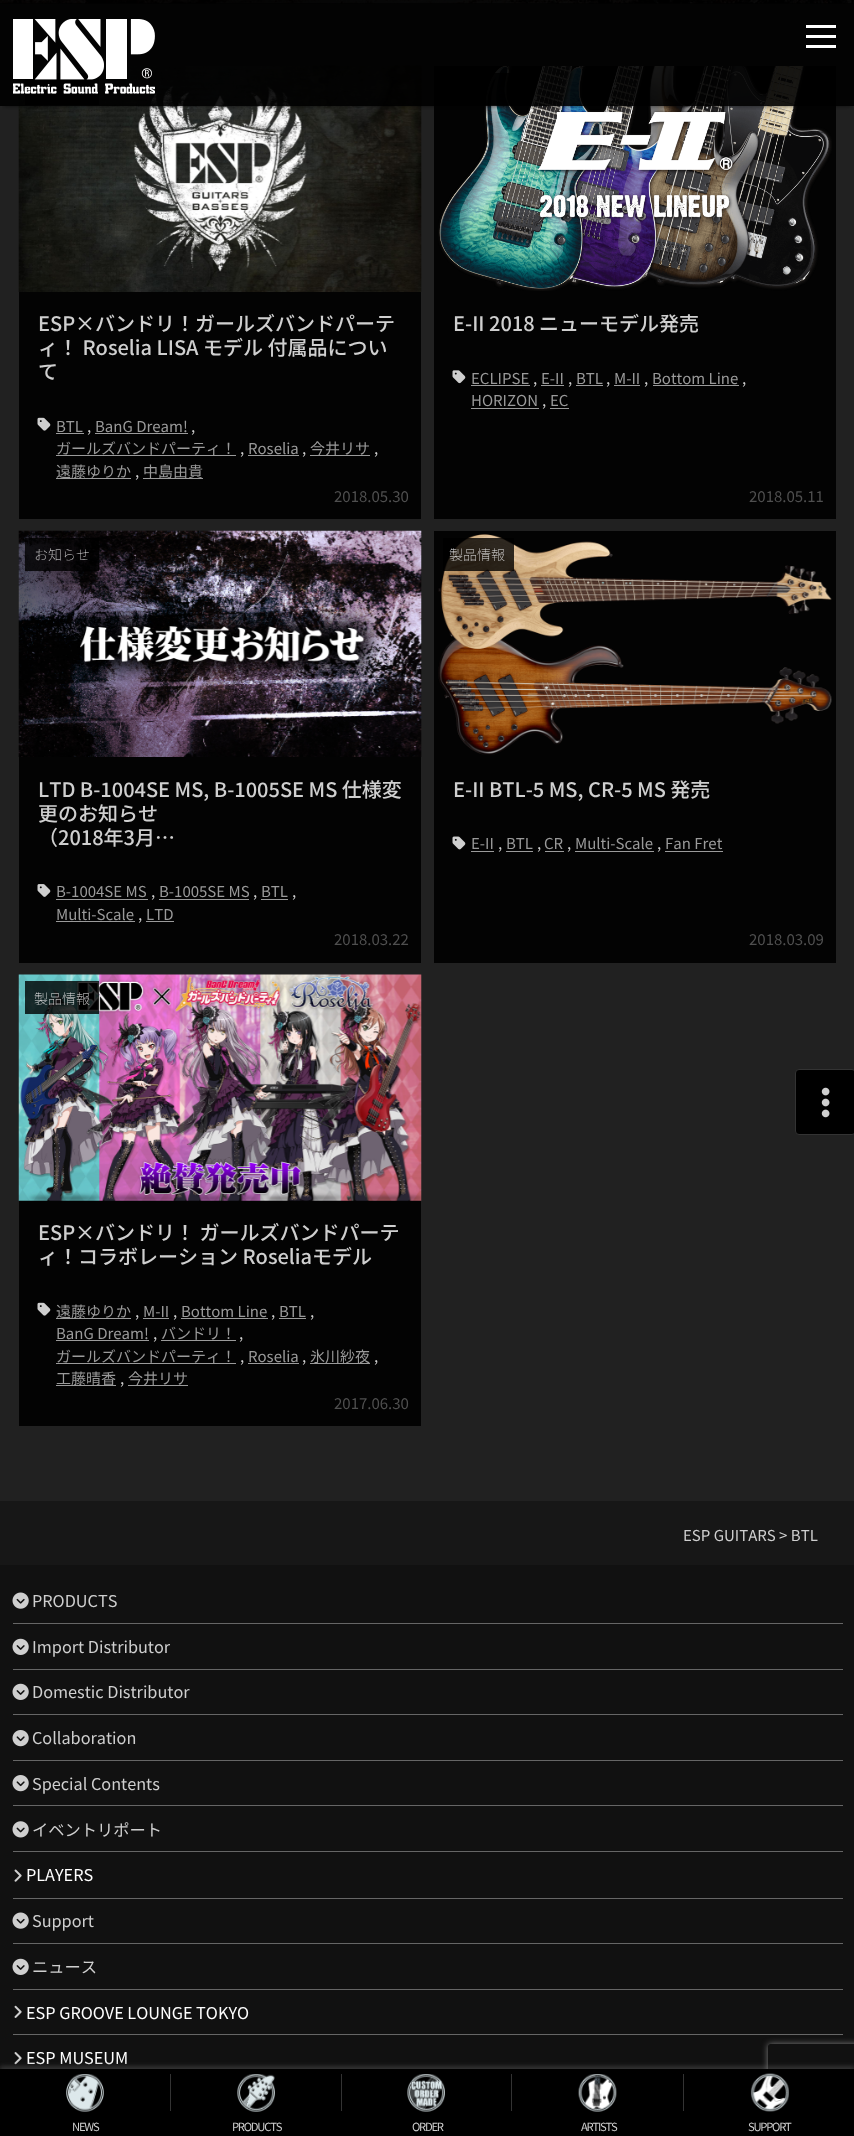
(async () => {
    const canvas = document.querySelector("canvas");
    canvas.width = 854;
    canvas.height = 2136;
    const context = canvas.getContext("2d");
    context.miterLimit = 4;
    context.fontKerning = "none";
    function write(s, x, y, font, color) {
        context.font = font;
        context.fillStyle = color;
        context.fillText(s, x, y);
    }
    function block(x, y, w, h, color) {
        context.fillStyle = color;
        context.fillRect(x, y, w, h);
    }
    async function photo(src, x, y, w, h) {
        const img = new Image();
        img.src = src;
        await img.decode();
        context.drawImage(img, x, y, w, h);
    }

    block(0, 0, 854, 2136, "rgb(33, 33, 33)");
    block(0, 3, 854, 1, "rgb(17, 17, 17)");
    await photo("media/2.png", 0, 0, 854, 4);
    await photo("media/3.png", 18, 65, 404, 227);
    block(25, 73, 74, 32, "rgba(0, 0, 0, 0.8)");
    block(434, 66, 402, 453, "rgb(3, 3, 3)");
    await photo("media/5.png", 438, 66, 394, 225);
    block(483, 73, 30, 32, "rgba(0, 0, 0, 0.8)");
    context.save();
    context.beginPath();
    context.rect(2, 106, 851, 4);
    context.clip();
    context.fillStyle = "rgba(0, 0, 0, 0.6)";
    context.filter = "blur(2px)";
    context.beginPath();
    context.rect(4, 8, 847, 98);
    context.fill();
    context.filter = "none";
    context.restore();
    block(0, 0, 854, 106, "rgba(0, 0, 0, 0.9)");
    await photo("media/1.png", 13, 19, 142, 75);
    block(806, 25, 30, 3, "rgb(255, 255, 255)");
    block(806, 35, 30, 3, "rgb(255, 255, 255)");
    block(806, 45, 30, 3, "rgb(255, 255, 255)");
    block(19, 292, 402, 227, "rgb(3, 3, 3)");
    write("ESP×バンドリ！ガールズバンドパーテ", 38, 331, "500 20px Noto Sans JP", "rgb(207, 207, 207)");
    write("ィ！ Roselia LISA モデル 付属品につい", 38, 355, "500 20px Noto Sans JP", "rgb(207, 207, 207)");
    write("て", 38, 379, "500 20px Noto Sans JP", "rgb(207, 207, 207)");
    write("2018.05.30", 334, 502, "15px Noto Sans JP", "rgb(79, 79, 79)");
    await photo("media/4.png", 37, 417, 14, 14);
    write("BTL", 56, 432, "15px Noto Sans JP", "rgb(154, 154, 154)");
    block(56, 433, 28, 1, "rgb(154, 154, 154)");
    write(",", 87, 432, "15px Noto Sans JP", "rgb(207, 207, 207)");
    write("BanG Dream!", 95, 432, "15px Noto Sans JP", "rgb(154, 154, 154)");
    block(95, 433, 93, 1, "rgb(154, 154, 154)");
    write(",", 191, 432, "15px Noto Sans JP", "rgb(207, 207, 207)");
    block(56, 455, 180, 1, "rgb(154, 154, 154)");
    write("ガールズバンドパーティ！", 56, 454, "15px Noto Sans JP", "rgb(154, 154, 154)");
    write(",", 240, 454, "15px Noto Sans JP", "rgb(207, 207, 207)");
    write("Roselia", 248, 454, "15px Noto Sans JP", "rgb(154, 154, 154)");
    block(248, 455, 51, 1, "rgb(154, 154, 154)");
    write(",", 302, 454, "15px Noto Sans JP", "rgb(207, 207, 207)");
    block(310, 455, 60, 1, "rgb(154, 154, 154)");
    write("今井リサ", 310, 454, "15px Noto Sans JP", "rgb(154, 154, 154)");
    write(",", 374, 454, "15px Noto Sans JP", "rgb(207, 207, 207)");
    block(56, 478, 75, 1, "rgb(154, 154, 154)");
    write("遠藤ゆりか", 56, 477, "15px Noto Sans JP", "rgb(154, 154, 154)");
    write(",", 135, 477, "15px Noto Sans JP", "rgb(207, 207, 207)");
    block(143, 478, 60, 1, "rgb(154, 154, 154)");
    write("中島由貴", 143, 477, "15px Noto Sans JP", "rgb(154, 154, 154)");
    write("E-II 2018 ニューモデル発売", 453, 331, "500 20px Noto Sans JP", "rgb(207, 207, 207)");
    write("2018.05.11", 749, 502, "15px Noto Sans JP", "rgb(79, 79, 79)");
    await photo("media/6.png", 452, 370, 14, 14);
    write("ECLIPSE", 471, 384, "15px Noto Sans JP", "rgb(154, 154, 154)");
    block(471, 385, 59, 1, "rgb(154, 154, 154)");
    write(",", 533, 384, "15px Noto Sans JP", "rgb(207, 207, 207)");
    write("E-II", 541, 384, "15px Noto Sans JP", "rgb(154, 154, 154)");
    block(541, 385, 23, 1, "rgb(154, 154, 154)");
    write(",", 568, 384, "15px Noto Sans JP", "rgb(207, 207, 207)");
    write("BTL", 576, 384, "15px Noto Sans JP", "rgb(154, 154, 154)");
    block(576, 385, 27, 1, "rgb(154, 154, 154)");
    write(",", 606, 384, "15px Noto Sans JP", "rgb(207, 207, 207)");
    write("M-II", 614, 384, "15px Noto Sans JP", "rgb(154, 154, 154)");
    block(614, 385, 26, 1, "rgb(154, 154, 154)");
    write(",", 644, 384, "15px Noto Sans JP", "rgb(207, 207, 207)");
    write("Bottom Line", 652, 384, "15px Noto Sans JP", "rgb(154, 154, 154)");
    block(653, 385, 86, 1, "rgb(154, 154, 154)");
    write(",", 742, 384, "15px Noto Sans JP", "rgb(207, 207, 207)");
    write("HORIZON", 471, 406, "15px Noto Sans JP", "rgb(154, 154, 154)");
    block(471, 408, 68, 1, "rgb(154, 154, 154)");
    write(",", 542, 406, "15px Noto Sans JP", "rgb(207, 207, 207)");
    write("EC", 550, 406, "15px Noto Sans JP", "rgb(154, 154, 154)");
    block(550, 408, 19, 1, "rgb(154, 154, 154)");
    block(19, 757, 402, 206, "rgb(3, 3, 3)");
    await photo("media/7.png", 18, 530, 404, 227);
    block(25, 538, 74, 33, "rgba(0, 0, 0, 0.8)");
    write("お知らせ", 34, 560, "100 14px Noto Sans JP", "rgb(231, 230, 231)");
    write("LTD B-1004SE MS, B-1005SE MS 仕様変", 38, 797, "500 20px Noto Sans JP", "rgb(207, 207, 207)");
    write("更のお知らせ", 38, 821, "500 20px Noto Sans JP", "rgb(207, 207, 207)");
    write("（2018年3月…", 38, 845, "500 20px Noto Sans JP", "rgb(207, 207, 207)");
    write("2018.03.22", 334, 945, "15px Noto Sans JP", "rgb(79, 79, 79)");
    await photo("media/8.png", 37, 884, 14, 13);
    write("B-1004SE MS", 56, 897, "15px Noto Sans JP", "rgb(154, 154, 154)");
    block(56, 899, 92, 1, "rgb(154, 154, 154)");
    write(",", 151, 897, "15px Noto Sans JP", "rgb(207, 207, 207)");
    write("B-1005SE MS", 159, 897, "15px Noto Sans JP", "rgb(154, 154, 154)");
    block(159, 899, 90, 1, "rgb(154, 154, 154)");
    write(",", 253, 897, "15px Noto Sans JP", "rgb(207, 207, 207)");
    write("BTL", 261, 897, "15px Noto Sans JP", "rgb(154, 154, 154)");
    block(261, 899, 27, 1, "rgb(154, 154, 154)");
    write(",", 292, 897, "15px Noto Sans JP", "rgb(207, 207, 207)");
    write("Multi-Scale", 56, 920, "15px Noto Sans JP", "rgb(154, 154, 154)");
    block(56, 921, 79, 1, "rgb(154, 154, 154)");
    write(",", 138, 920, "15px Noto Sans JP", "rgb(207, 207, 207)");
    write("LTD", 146, 920, "15px Noto Sans JP", "rgb(154, 154, 154)");
    block(146, 921, 28, 1, "rgb(154, 154, 154)");
    block(434, 531, 402, 432, "rgb(3, 3, 3)");
    await photo("media/9.png", 438, 534, 394, 221);
    block(443, 538, 71, 33, "rgba(0, 0, 0, 0.8)");
    write("製品情報", 449, 560, "100 14px Noto Sans JP", "rgb(231, 230, 231)");
    write("E-II BTL-5 MS, CR-5 MS 発売", 453, 797, "500 20px Noto Sans JP", "rgb(207, 207, 207)");
    write("2018.03.09", 749, 945, "15px Noto Sans JP", "rgb(79, 79, 79)");
    await photo("media/10.png", 452, 836, 14, 14);
    write("E-II", 471, 849, "15px Noto Sans JP", "rgb(154, 154, 154)");
    block(471, 851, 23, 1, "rgb(154, 154, 154)");
    write(",", 498, 849, "15px Noto Sans JP", "rgb(207, 207, 207)");
    write("BTL", 506, 849, "15px Noto Sans JP", "rgb(154, 154, 154)");
    block(506, 851, 27, 1, "rgb(154, 154, 154)");
    write(",", 537, 849, "15px Noto Sans JP", "rgb(207, 207, 207)");
    write("CR", 544, 849, "15px Noto Sans JP", "rgb(154, 154, 154)");
    block(545, 851, 19, 1, "rgb(154, 154, 154)");
    write(",", 567, 849, "15px Noto Sans JP", "rgb(207, 207, 207)");
    write("Multi-Scale", 575, 849, "15px Noto Sans JP", "rgb(154, 154, 154)");
    block(575, 851, 79, 1, "rgb(154, 154, 154)");
    write(",", 657, 849, "15px Noto Sans JP", "rgb(207, 207, 207)");
    write("Fan Fret", 665, 849, "15px Noto Sans JP", "rgb(154, 154, 154)");
    block(665, 851, 58, 1, "rgb(154, 154, 154)");
    block(19, 1200, 402, 226, "rgb(3, 3, 3)");
    await photo("media/11.png", 18, 974, 404, 227);
    block(25, 981, 74, 33, "rgba(0, 0, 0, 0.8)");
    write("製品情報", 34, 1004, "100 14px Noto Sans JP", "rgb(231, 230, 231)");
    write("ESP×バンドリ！ ガールズバンドパーテ", 38, 1240, "500 20px Noto Sans JP", "rgb(207, 207, 207)");
    write("ィ！コラボレーション Roseliaモデル", 38, 1264, "500 20px Noto Sans JP", "rgb(207, 207, 207)");
    write("2017.06.30", 334, 1409, "15px Noto Sans JP", "rgb(79, 79, 79)");
    await photo("media/4.png", 37, 1302, 14, 14);
    block(56, 1318, 75, 1, "rgb(154, 154, 154)");
    write("遠藤ゆりか", 56, 1317, "15px Noto Sans JP", "rgb(154, 154, 154)");
    write(",", 135, 1317, "15px Noto Sans JP", "rgb(207, 207, 207)");
    write("M-II", 143, 1317, "15px Noto Sans JP", "rgb(154, 154, 154)");
    block(143, 1318, 26, 1, "rgb(154, 154, 154)");
    write(",", 173, 1317, "15px Noto Sans JP", "rgb(207, 207, 207)");
    write("Bottom Line", 181, 1317, "15px Noto Sans JP", "rgb(154, 154, 154)");
    block(181, 1318, 87, 1, "rgb(154, 154, 154)");
    write(",", 271, 1317, "15px Noto Sans JP", "rgb(207, 207, 207)");
    write("BTL", 279, 1317, "15px Noto Sans JP", "rgb(154, 154, 154)");
    block(279, 1318, 27, 1, "rgb(154, 154, 154)");
    write(",", 310, 1317, "15px Noto Sans JP", "rgb(207, 207, 207)");
    write("BanG Dream!", 56, 1339, "15px Noto Sans JP", "rgb(154, 154, 154)");
    block(56, 1340, 93, 1, "rgb(154, 154, 154)");
    write(",", 153, 1339, "15px Noto Sans JP", "rgb(207, 207, 207)");
    write("バンドリ！", 161, 1339, "15px Noto Sans JP", "rgb(154, 154, 154)");
    block(161, 1340, 75, 1, "rgb(154, 154, 154)");
    write(",", 239, 1339, "15px Noto Sans JP", "rgb(207, 207, 207)");
    block(56, 1363, 180, 1, "rgb(154, 154, 154)");
    write("ガールズバンドパーティ！", 56, 1362, "15px Noto Sans JP", "rgb(154, 154, 154)");
    write(",", 240, 1362, "15px Noto Sans JP", "rgb(207, 207, 207)");
    write("Roselia", 248, 1362, "15px Noto Sans JP", "rgb(154, 154, 154)");
    block(248, 1363, 51, 1, "rgb(154, 154, 154)");
    write(",", 302, 1362, "15px Noto Sans JP", "rgb(207, 207, 207)");
    block(310, 1363, 60, 1, "rgb(154, 154, 154)");
    write("氷川紗夜", 310, 1362, "15px Noto Sans JP", "rgb(154, 154, 154)");
    write(",", 374, 1362, "15px Noto Sans JP", "rgb(207, 207, 207)");
    block(56, 1385, 60, 1, "rgb(154, 154, 154)");
    write("工藤晴香", 56, 1384, "15px Noto Sans JP", "rgb(154, 154, 154)");
    write(",", 120, 1384, "15px Noto Sans JP", "rgb(207, 207, 207)");
    block(128, 1385, 60, 1, "rgb(154, 154, 154)");
    write("今井リサ", 128, 1384, "15px Noto Sans JP", "rgb(154, 154, 154)");
    context.fillStyle = "rgb(0, 0, 0)";
    context.beginPath();
    context.roundRect(795.5, 1069.5, 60, 65, 3.5);
    context.fill();
    context.strokeStyle = "rgb(51, 51, 51)";
    context.stroke();
    await photo("media/12.png", 821, 1087, 9, 31);
    block(0, 1501, 854, 64, "rgb(23, 23, 23)");
    write("ESP GUITARS > BTL", 683, 1541, "15px Noto Sans JP", "rgb(207, 207, 207)");
    block(0, 1565, 854, 504, "rgb(17, 17, 17)");
    block(13, 1623, 830, 1, "rgb(102, 102, 102)");
    await photo("media/13.png", 12, 1592, 17, 17);
    write("PRODUCTS", 32, 1607, "16.25px Noto Sans JP", "rgb(207, 207, 207)");
    block(13, 1669, 830, 1, "rgb(102, 102, 102)");
    await photo("media/14.png", 12, 1638, 17, 17);
    write("Import Distributor", 32, 1653, "16.25px Noto Sans JP", "rgb(207, 207, 207)");
    block(13, 1714, 830, 1, "rgb(102, 102, 102)");
    await photo("media/14.png", 12, 1683, 17, 17);
    write("Domestic Distributor", 32, 1698, "16.25px Noto Sans JP", "rgb(207, 207, 207)");
    block(13, 1760, 830, 1, "rgb(102, 102, 102)");
    await photo("media/15.png", 12, 1730, 17, 17);
    write("Collaboration", 32, 1744, "16.25px Noto Sans JP", "rgb(207, 207, 207)");
    block(13, 1805, 830, 1, "rgb(102, 102, 102)");
    await photo("media/15.png", 12, 1775, 17, 17);
    write("Special Contents", 32, 1790, "16.25px Noto Sans JP", "rgb(207, 207, 207)");
    block(13, 1851, 830, 1, "rgb(102, 102, 102)");
    await photo("media/16.png", 12, 1821, 17, 17);
    write("イベントリポート", 32, 1836, "16.25px Noto Sans JP", "rgb(207, 207, 207)");
    block(13, 1898, 830, 1, "rgb(102, 102, 102)");
    await photo("media/17.png", 14, 1869, 8, 13);
    write("PLAYERS", 26, 1881, "16.25px Noto Sans JP", "rgb(255, 255, 255)");
    block(13, 1943, 830, 1, "rgb(102, 102, 102)");
    await photo("media/13.png", 12, 1912, 17, 17);
    write("Support", 32, 1927, "16.25px Noto Sans JP", "rgb(207, 207, 207)");
    block(13, 1989, 830, 1, "rgb(102, 102, 102)");
    await photo("media/14.png", 12, 1958, 17, 17);
    write("ニュース", 32, 1973, "16.25px Noto Sans JP", "rgb(207, 207, 207)");
    block(13, 2034, 830, 1, "rgb(102, 102, 102)");
    await photo("media/18.png", 14, 2005, 8, 13);
    write("ESP GROOVE LOUNGE TOKYO", 26, 2019, "16.25px Noto Sans JP", "rgb(255, 255, 255)");
    await photo("media/19.png", 14, 2052, 8, 13);
    write("ESP MUSEUM", 26, 2064, "16.25px Noto Sans JP", "rgb(255, 255, 255)");
    context.fillStyle = "rgb(51, 51, 51)";
    context.filter = "blur(2px)";
    context.beginPath();
    context.rect(0, 2066, 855, 68);
    context.fill();
    context.filter = "none";
    context.save();
    context.beginPath();
    context.moveTo(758, 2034);
    context.lineTo(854, 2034);
    context.lineTo(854, 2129);
    context.lineTo(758, 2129);
    context.closePath();
    context.moveTo(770.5, 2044);
    context.lineTo(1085.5, 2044);
    context.bezierCurveTo(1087, 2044, 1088, 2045, 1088, 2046.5);
    context.lineTo(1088, 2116.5);
    context.bezierCurveTo(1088, 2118, 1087, 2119, 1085.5, 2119);
    context.lineTo(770.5, 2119);
    context.bezierCurveTo(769, 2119, 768, 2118, 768, 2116.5);
    context.lineTo(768, 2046.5);
    context.bezierCurveTo(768, 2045, 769, 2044, 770.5, 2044);
    context.closePath();
    context.clip("evenodd");
    context.fillStyle = "rgb(128, 128, 128)";
    context.filter = "blur(3px)";
    context.beginPath();
    context.roundRect(768, 2044, 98, 75, 2.5);
    context.fill();
    context.filter = "none";
    context.restore();
    block(0, 2069, 854, 67, "rgb(0, 0, 0)");
    block(170, 2074, 1, 37, "rgb(51, 51, 51)");
    await photo("media/20.png", 66, 2074, 38, 38);
    context.letterSpacing = "-1.25px";
    write("NEWS", 72, 2131, "11.25px Noto Sans JP", "rgb(207, 207, 207)");
    block(341, 2074, 1, 37, "rgb(51, 51, 51)");
    await photo("media/21.png", 237, 2074, 38, 38);
    write("PRODUCTS", 232, 2131, "11.25px Noto Sans JP", "rgb(207, 207, 207)");
    block(511, 2074, 1, 37, "rgb(51, 51, 51)");
    await photo("media/22.png", 407, 2074, 38, 38);
    write("ORDER", 412, 2131, "11.25px Noto Sans JP", "rgb(207, 207, 207)");
    block(683, 2074, 1, 37, "rgb(51, 51, 51)");
    await photo("media/23.png", 578, 2074, 39, 38);
    write("ARTISTS", 581, 2131, "11.25px Noto Sans JP", "rgb(207, 207, 207)");
    await photo("media/24.png", 750, 2073, 39, 39);
    write("SUPPORT", 748, 2131, "11.25px Noto Sans JP", "rgb(207, 207, 207)");
})();
